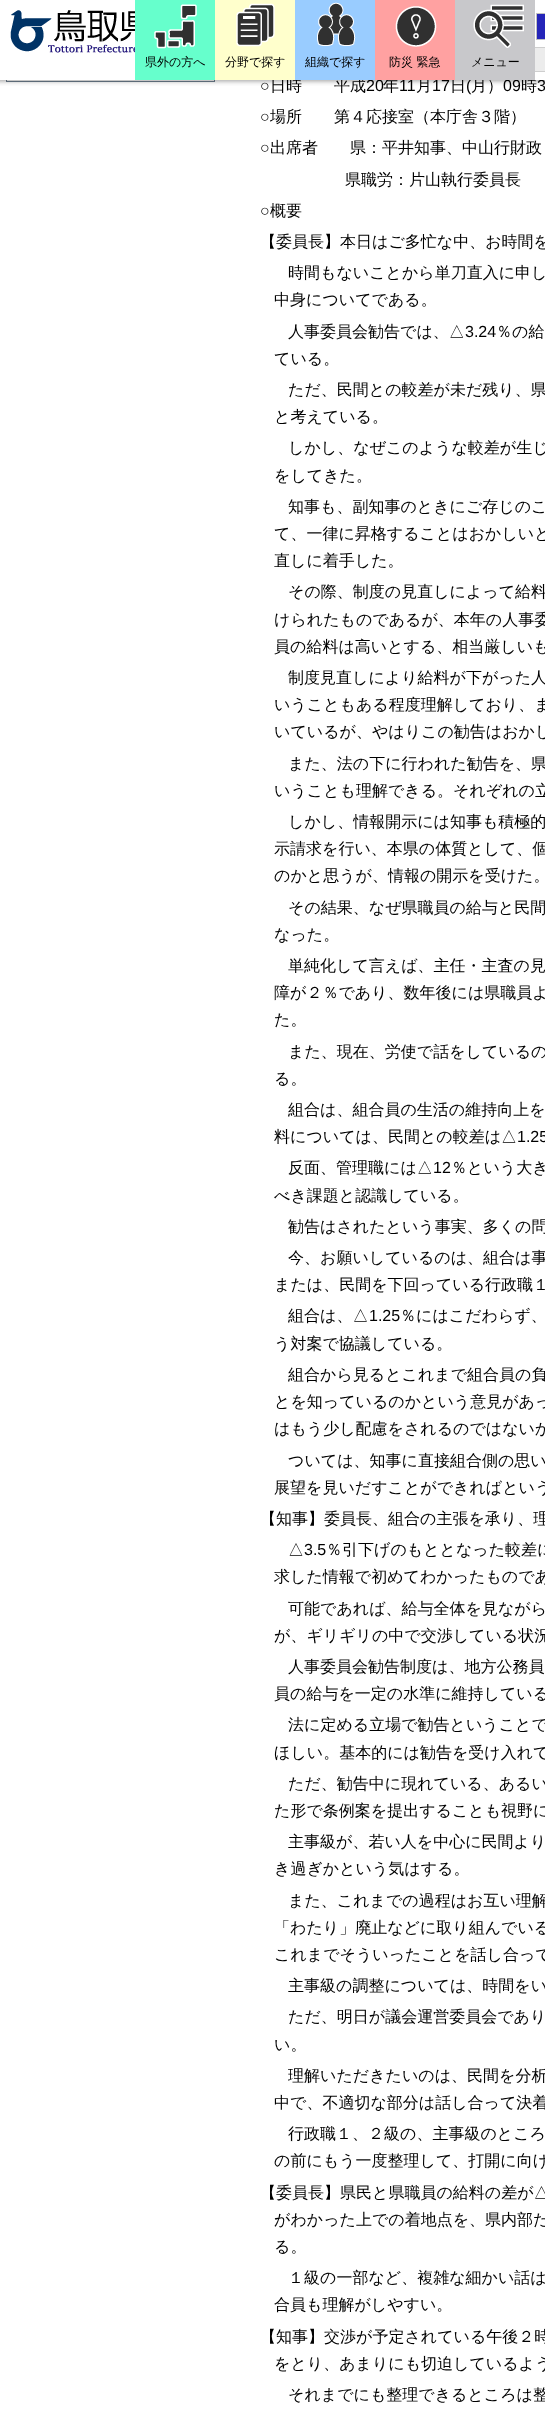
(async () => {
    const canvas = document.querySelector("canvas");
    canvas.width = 545;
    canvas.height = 2415;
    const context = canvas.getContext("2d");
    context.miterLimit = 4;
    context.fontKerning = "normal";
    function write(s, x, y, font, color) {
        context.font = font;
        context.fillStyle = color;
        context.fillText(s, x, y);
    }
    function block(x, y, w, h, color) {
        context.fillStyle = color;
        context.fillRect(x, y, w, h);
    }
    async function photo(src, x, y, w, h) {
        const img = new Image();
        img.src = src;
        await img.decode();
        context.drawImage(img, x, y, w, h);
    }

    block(0, 0, 545, 2415, "rgb(255, 255, 255)");
    context.strokeStyle = "rgb(112, 128, 144)";
    context.strokeRect(6.5, -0.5, 208, 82);
    context.fillStyle = "rgba(0, 0, 0, 0.1)";
    context.filter = "blur(2.5px)";
    context.beginPath();
    context.rect(-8, 1, 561, 80);
    context.fill();
    context.filter = "none";
    context.filter = "blur(2.5px)";
    context.beginPath();
    context.rect(-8, 1, 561, 80);
    context.fill();
    context.filter = "none";
    context.filter = "blur(2.5px)";
    context.beginPath();
    context.rect(-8, 1, 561, 80);
    context.fill();
    context.filter = "none";
    context.filter = "blur(2.5px)";
    context.beginPath();
    context.rect(-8, 1, 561, 80);
    context.fill();
    context.filter = "none";
    write("日時　　平成", 270, 91, "500 16px WenQuanYi Zen Hei", "rgb(0, 0, 0)");
    write("20", 366, 91, "16px Liberation Sans", "rgb(0, 0, 0)");
    write("年", 383, 91, "500 16px WenQuanYi Zen Hei", "rgb(0, 0, 0)");
    write("月", 416, 91, "500 16px WenQuanYi Zen Hei", "rgb(0, 0, 0)");
    write("日", 450, 91, "500 16px WenQuanYi Zen Hei", "rgb(0, 0, 0)");
    write("(", 466, 91, "16px Liberation Sans", "rgb(0, 0, 0)");
    write("月）", 471, 91, "500 16px WenQuanYi Zen Hei", "rgb(0, 0, 0)");
    write("09", 503, 91, "16px Liberation Sans", "rgb(0, 0, 0)");
    write("時", 521, 91, "500 16px WenQuanYi Zen Hei", "rgb(0, 0, 0)");
    write("3", 537, 91, "16px Liberation Sans", "rgb(0, 0, 0)");
    block(0, 0, 545, 80, "rgb(255, 255, 255)");
    await photo("media/1.png", 10, 10, 125, 43);
    context.fillStyle = "rgb(37, 37, 184)";
    context.beginPath();
    context.rect(536.5, 13.5, 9, 26);
    context.fill();
    context.strokeStyle = "rgb(191, 191, 191)";
    context.stroke();
    block(535, 47, 10, 1, "rgb(206, 206, 206)");
    block(535, 48, 10, 23, "rgb(236, 236, 236)");
    block(535, 71, 10, 1, "rgb(206, 206, 206)");
    block(135, 0, 80, 80, "rgb(102, 255, 204)");
    await photo("media/2.png", 154, 4, 43, 45);
    write("県外の方へ", 145, 66, "500 12px WenQuanYi Zen Hei", "rgb(0, 0, 0)");
    block(215, 0, 80, 80, "rgb(255, 255, 204)");
    await photo("media/3.png", 236, 3, 39, 44);
    write("分野で探す", 225, 66, "500 12px WenQuanYi Zen Hei", "rgb(0, 0, 0)");
    block(295, 0, 80, 80, "rgb(153, 204, 255)");
    await photo("media/4.png", 317, 2, 39, 44);
    write("組織で探す", 305, 66, "500 12px WenQuanYi Zen Hei", "rgb(0, 0, 0)");
    block(375, 0, 80, 80, "rgb(255, 161, 161)");
    await photo("media/5.png", 395, 6, 42, 41);
    write("防災 緊急", 389, 66, "500 12px WenQuanYi Zen Hei", "rgb(0, 0, 0)");
    block(455, 0, 80, 80, "rgb(200, 200, 203)");
    await photo("media/6.png", 473, 4, 51, 44);
    write("メニュー", 471, 66, "500 12px WenQuanYi Zen Hei", "rgb(0, 0, 0)");
    write("○", 260, 91, "16px Liberation Sans", "rgb(0, 0, 0)");
    write("11", 399, 91, "16px Liberation Sans", "rgb(0, 0, 0)");
    write("17", 432, 91, "16px Liberation Sans", "rgb(0, 0, 0)");
    write("○", 260, 122, "16px Liberation Sans", "rgb(0, 0, 0)");
    write("場所　　第４応接室（本庁舎３階）", 270, 122, "500 16px WenQuanYi Zen Hei", "rgb(0, 0, 0)");
    write("○", 260, 153, "16px Liberation Sans", "rgb(0, 0, 0)");
    write("出席者　　県：平井知事、中山行財政", 270, 153, "500 16px WenQuanYi Zen Hei", "rgb(0, 0, 0)");
    write("県職労：片山執行委員長", 345, 185, "500 16px WenQuanYi Zen Hei", "rgb(0, 0, 0)");
    write("○", 260, 216, "16px Liberation Sans", "rgb(0, 0, 0)");
    write("概要", 270, 216, "500 16px WenQuanYi Zen Hei", "rgb(0, 0, 0)");
    write("【委員長】本日はご多忙な中、お時間を", 260, 247, "500 16px WenQuanYi Zen Hei", "rgb(0, 0, 0)");
    write("時間もないことから単刀直入に申し", 288, 278, "500 16px WenQuanYi Zen Hei", "rgb(0, 0, 0)");
    write("中身についてである。", 274, 305, "500 16px WenQuanYi Zen Hei", "rgb(0, 0, 0)");
    write("人事委員会勧告では、△", 288, 337, "500 16px WenQuanYi Zen Hei", "rgb(0, 0, 0)");
    write("3.24", 465, 337, "16px Liberation Sans", "rgb(0, 0, 0)");
    write("％の給", 496, 337, "500 16px WenQuanYi Zen Hei", "rgb(0, 0, 0)");
    write("ている。", 274, 364, "500 16px WenQuanYi Zen Hei", "rgb(0, 0, 0)");
    write("ただ、民間との較差が未だ残り、県", 288, 395, "500 16px WenQuanYi Zen Hei", "rgb(0, 0, 0)");
    write("と考えている。", 274, 422, "500 16px WenQuanYi Zen Hei", "rgb(0, 0, 0)");
    write("しかし、なぜこのような較差が生じ", 288, 453, "500 16px WenQuanYi Zen Hei", "rgb(0, 0, 0)");
    write("をしてきた。", 274, 481, "500 16px WenQuanYi Zen Hei", "rgb(0, 0, 0)");
    write("知事も、副知事のときにご存じのこ", 288, 512, "500 16px WenQuanYi Zen Hei", "rgb(0, 0, 0)");
    write("て、一律に昇格することはおかしいと", 274, 539, "500 16px WenQuanYi Zen Hei", "rgb(0, 0, 0)");
    write("直しに着手した。", 274, 566, "500 16px WenQuanYi Zen Hei", "rgb(0, 0, 0)");
    write("その際、制度の見直しによって給料", 288, 597, "500 16px WenQuanYi Zen Hei", "rgb(0, 0, 0)");
    write("けられたものであるが、本年の人事委", 274, 625, "500 16px WenQuanYi Zen Hei", "rgb(0, 0, 0)");
    write("員の給料は高いとする、相当厳しいも", 274, 652, "500 16px WenQuanYi Zen Hei", "rgb(0, 0, 0)");
    write("制度見直しにより給料が下がった人", 288, 683, "500 16px WenQuanYi Zen Hei", "rgb(0, 0, 0)");
    write("いうこともある程度理解しており、ま", 274, 710, "500 16px WenQuanYi Zen Hei", "rgb(0, 0, 0)");
    write("いているが、やはりこの勧告はおかし", 274, 737, "500 16px WenQuanYi Zen Hei", "rgb(0, 0, 0)");
    write("また、法の下に行われた勧告を、県", 288, 769, "500 16px WenQuanYi Zen Hei", "rgb(0, 0, 0)");
    write("いうことも理解できる。それぞれの立", 274, 796, "500 16px WenQuanYi Zen Hei", "rgb(0, 0, 0)");
    write("しかし、情報開示には知事も積極的", 288, 827, "500 16px WenQuanYi Zen Hei", "rgb(0, 0, 0)");
    write("示請求を行い、本県の体質として、個", 274, 854, "500 16px WenQuanYi Zen Hei", "rgb(0, 0, 0)");
    write("のかと思うが、情報の開示を受けた。", 274, 881, "500 16px WenQuanYi Zen Hei", "rgb(0, 0, 0)");
    write("その結果、なぜ県職員の給与と民間", 288, 913, "500 16px WenQuanYi Zen Hei", "rgb(0, 0, 0)");
    write("なった。", 274, 940, "500 16px WenQuanYi Zen Hei", "rgb(0, 0, 0)");
    write("単純化して言えば、主任・主査の見", 288, 971, "500 16px WenQuanYi Zen Hei", "rgb(0, 0, 0)");
    write("障が２％であり、数年後には県職員よ", 274, 998, "500 16px WenQuanYi Zen Hei", "rgb(0, 0, 0)");
    write("た。", 274, 1025, "500 16px WenQuanYi Zen Hei", "rgb(0, 0, 0)");
    write("また、現在、労使で話をしているの", 288, 1057, "500 16px WenQuanYi Zen Hei", "rgb(0, 0, 0)");
    write("る。", 274, 1084, "500 16px WenQuanYi Zen Hei", "rgb(0, 0, 0)");
    write("組合は、組合員の生活の維持向上を", 288, 1115, "500 16px WenQuanYi Zen Hei", "rgb(0, 0, 0)");
    write("料については、民間との較差は△", 274, 1142, "500 16px WenQuanYi Zen Hei", "rgb(0, 0, 0)");
    write("1.25", 517, 1142, "16px Liberation Sans", "rgb(0, 0, 0)");
    write("反面、管理職には△", 288, 1173, "500 16px WenQuanYi Zen Hei", "rgb(0, 0, 0)");
    write("12", 433, 1173, "16px Liberation Sans", "rgb(0, 0, 0)");
    write("％という大き", 451, 1173, "500 16px WenQuanYi Zen Hei", "rgb(0, 0, 0)");
    write("べき課題と認識している。", 274, 1201, "500 16px WenQuanYi Zen Hei", "rgb(0, 0, 0)");
    write("勧告はされたという事実、多くの問", 288, 1232, "500 16px WenQuanYi Zen Hei", "rgb(0, 0, 0)");
    write("今、お願いしているのは、組合は事", 288, 1263, "500 16px WenQuanYi Zen Hei", "rgb(0, 0, 0)");
    write("または、民間を下回っている行政職１", 274, 1290, "500 16px WenQuanYi Zen Hei", "rgb(0, 0, 0)");
    write("組合は、△", 288, 1321, "500 16px WenQuanYi Zen Hei", "rgb(0, 0, 0)");
    write("1.25", 369, 1321, "16px Liberation Sans", "rgb(0, 0, 0)");
    write("％にはこだわらず、", 400, 1321, "500 16px WenQuanYi Zen Hei", "rgb(0, 0, 0)");
    write("う対案で協議している。", 274, 1349, "500 16px WenQuanYi Zen Hei", "rgb(0, 0, 0)");
    write("組合から見るとこれまで組合員の負", 288, 1380, "500 16px WenQuanYi Zen Hei", "rgb(0, 0, 0)");
    write("とを知っているのかという意見があっ", 274, 1407, "500 16px WenQuanYi Zen Hei", "rgb(0, 0, 0)");
    write("はもう少し配慮をされるのではないか", 274, 1434, "500 16px WenQuanYi Zen Hei", "rgb(0, 0, 0)");
    write("ついては、知事に直接組合側の思い", 288, 1466, "500 16px WenQuanYi Zen Hei", "rgb(0, 0, 0)");
    write("展望を見いだすことができればという", 274, 1493, "500 16px WenQuanYi Zen Hei", "rgb(0, 0, 0)");
    write("【知事】委員長、組合の主張を承り、理", 260, 1524, "500 16px WenQuanYi Zen Hei", "rgb(0, 0, 0)");
    write("△", 288, 1555, "500 16px WenQuanYi Zen Hei", "rgb(0, 0, 0)");
    write("3.5", 304, 1555, "16px Liberation Sans", "rgb(0, 0, 0)");
    write("％引下げのもととなった較差に", 326, 1555, "500 16px WenQuanYi Zen Hei", "rgb(0, 0, 0)");
    write("求した情報で初めてわかったものであ", 274, 1582, "500 16px WenQuanYi Zen Hei", "rgb(0, 0, 0)");
    write("可能であれば、給与全体を見ながら", 288, 1614, "500 16px WenQuanYi Zen Hei", "rgb(0, 0, 0)");
    write("が、ギリギリの中で交渉している状況", 274, 1641, "500 16px WenQuanYi Zen Hei", "rgb(0, 0, 0)");
    write("人事委員会勧告制度は、地方公務員", 288, 1672, "500 16px WenQuanYi Zen Hei", "rgb(0, 0, 0)");
    write("員の給与を一定の水準に維持している", 274, 1699, "500 16px WenQuanYi Zen Hei", "rgb(0, 0, 0)");
    write("法に定める立場で勧告ということで", 288, 1730, "500 16px WenQuanYi Zen Hei", "rgb(0, 0, 0)");
    write("ほしい。基本的には勧告を受け入れて", 274, 1758, "500 16px WenQuanYi Zen Hei", "rgb(0, 0, 0)");
    write("ただ、勧告中に現れている、あるい", 288, 1789, "500 16px WenQuanYi Zen Hei", "rgb(0, 0, 0)");
    write("た形で条例案を提出することも視野に", 274, 1816, "500 16px WenQuanYi Zen Hei", "rgb(0, 0, 0)");
    write("主事級が、若い人を中心に民間より", 288, 1847, "500 16px WenQuanYi Zen Hei", "rgb(0, 0, 0)");
    write("き過ぎかという気はする。", 274, 1874, "500 16px WenQuanYi Zen Hei", "rgb(0, 0, 0)");
    write("また、これまでの過程はお互い理解", 288, 1906, "500 16px WenQuanYi Zen Hei", "rgb(0, 0, 0)");
    write("「わたり」廃止などに取り組んでいる", 274, 1933, "500 16px WenQuanYi Zen Hei", "rgb(0, 0, 0)");
    write("これまでそういったことを話し合って", 274, 1960, "500 16px WenQuanYi Zen Hei", "rgb(0, 0, 0)");
    write("主事級の調整については、時間をい", 288, 1991, "500 16px WenQuanYi Zen Hei", "rgb(0, 0, 0)");
    write("ただ、明日が議会運営委員会であり", 288, 2022, "500 16px WenQuanYi Zen Hei", "rgb(0, 0, 0)");
    write("い。", 274, 2050, "500 16px WenQuanYi Zen Hei", "rgb(0, 0, 0)");
    write("理解いただきたいのは、民間を分析", 288, 2081, "500 16px WenQuanYi Zen Hei", "rgb(0, 0, 0)");
    write("中で、不適切な部分は話し合って決着", 274, 2108, "500 16px WenQuanYi Zen Hei", "rgb(0, 0, 0)");
    write("行政職１、２級の、主事級のところ", 288, 2139, "500 16px WenQuanYi Zen Hei", "rgb(0, 0, 0)");
    write("の前にもう一度整理して、打開に向け", 274, 2166, "500 16px WenQuanYi Zen Hei", "rgb(0, 0, 0)");
    write("【委員長】県民と県職員の給料の差が△", 260, 2198, "500 16px WenQuanYi Zen Hei", "rgb(0, 0, 0)");
    write("がわかった上での着地点を、県内部だ", 274, 2225, "500 16px WenQuanYi Zen Hei", "rgb(0, 0, 0)");
    write("る。", 274, 2252, "500 16px WenQuanYi Zen Hei", "rgb(0, 0, 0)");
    write("１級の一部など、複雑な細かい話は", 288, 2283, "500 16px WenQuanYi Zen Hei", "rgb(0, 0, 0)");
    write("合員も理解がしやすい。", 274, 2310, "500 16px WenQuanYi Zen Hei", "rgb(0, 0, 0)");
    write("【知事】交渉が予定されている午後２時", 260, 2342, "500 16px WenQuanYi Zen Hei", "rgb(0, 0, 0)");
    write("をとり、あまりにも切迫しているよう", 274, 2369, "500 16px WenQuanYi Zen Hei", "rgb(0, 0, 0)");
    write("それまでにも整理できるところは整", 288, 2400, "500 16px WenQuanYi Zen Hei", "rgb(0, 0, 0)");
})();
